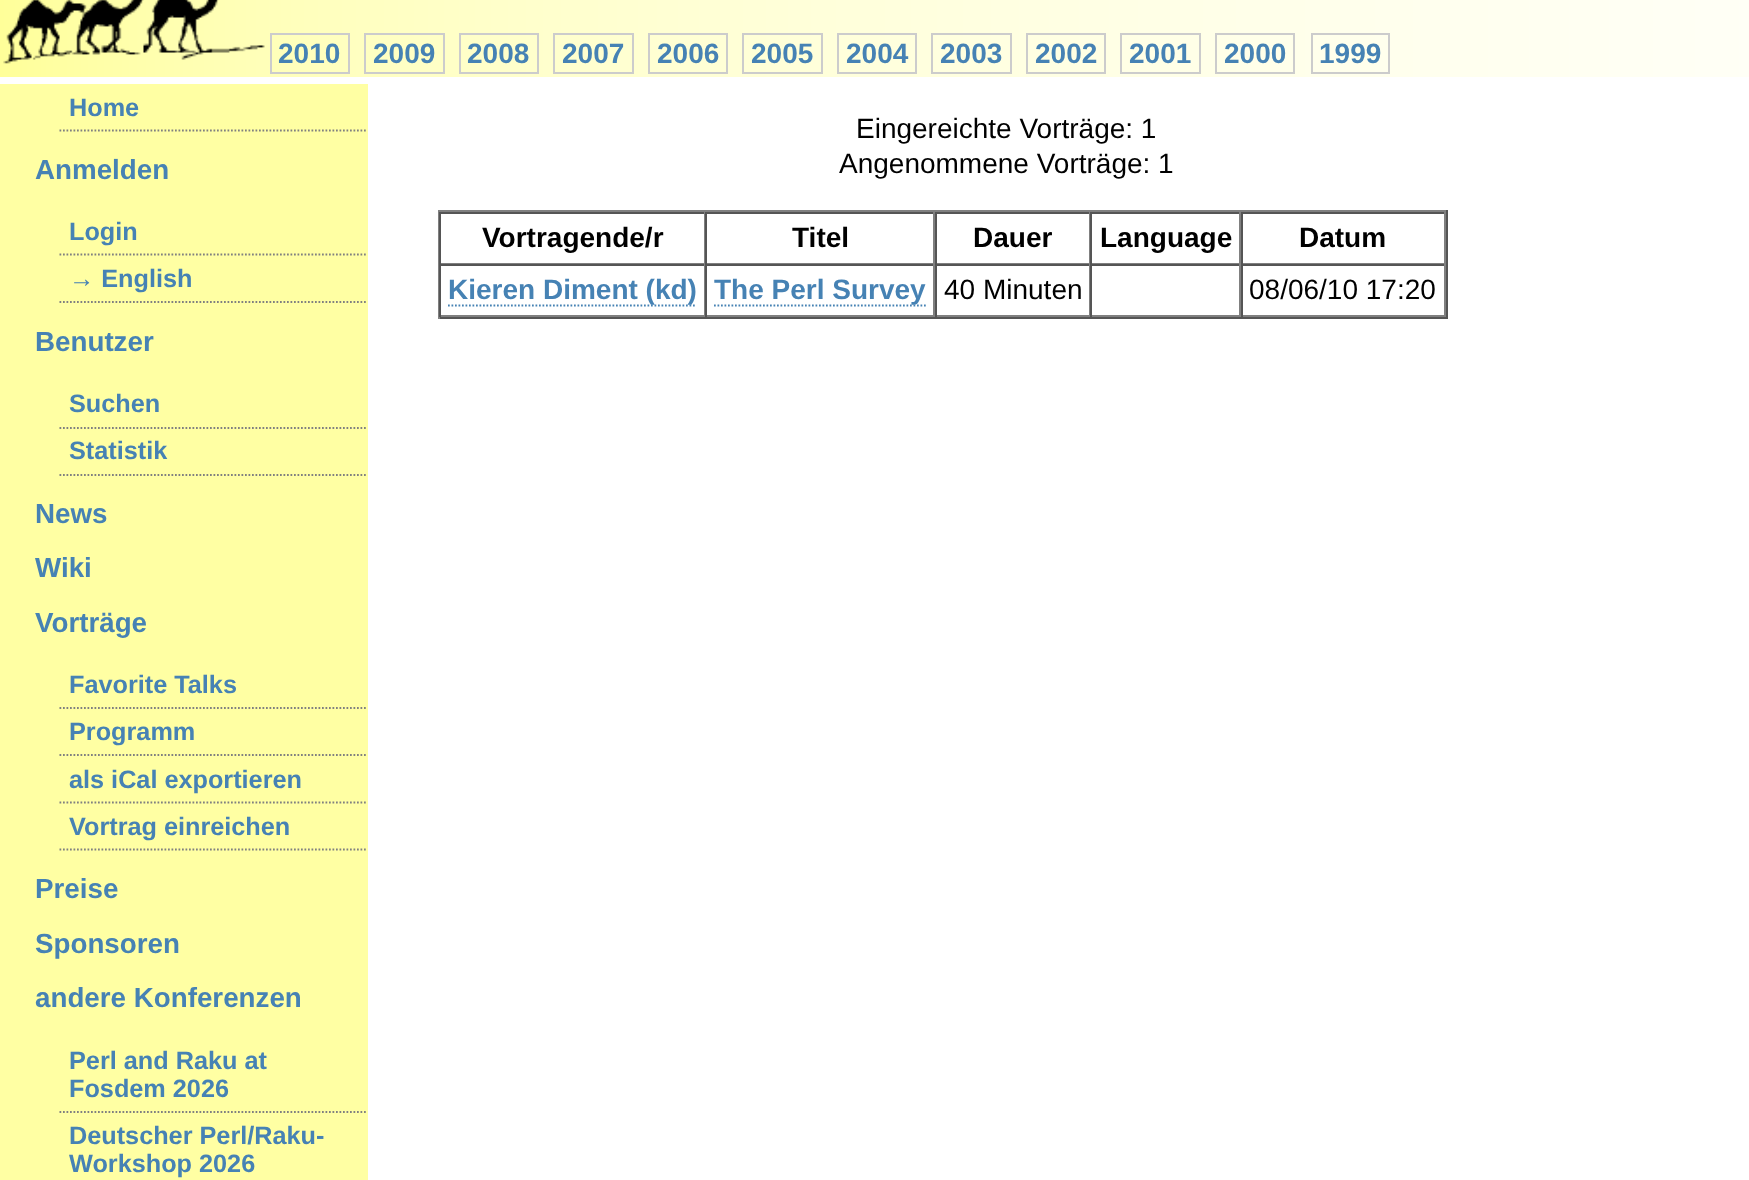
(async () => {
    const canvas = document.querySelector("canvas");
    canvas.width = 1749;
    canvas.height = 1180;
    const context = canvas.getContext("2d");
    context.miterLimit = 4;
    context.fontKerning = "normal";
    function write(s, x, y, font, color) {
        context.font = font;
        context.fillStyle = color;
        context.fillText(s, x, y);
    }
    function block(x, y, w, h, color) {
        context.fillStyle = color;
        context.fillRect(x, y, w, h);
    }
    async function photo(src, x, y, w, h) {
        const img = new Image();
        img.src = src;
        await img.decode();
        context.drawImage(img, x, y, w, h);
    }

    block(0, 0, 1749, 1180, "rgb(255, 255, 255)");
    await photo("media/1.png", 0, 0, 1749, 77);
    context.strokeStyle = "rgb(204, 204, 204)";
    context.lineWidth = 2;
    context.strokeRect(271, 34, 78, 39);
    write("2010", 278, 63, "bold 28px Liberation Sans", "rgb(70, 130, 180)");
    context.strokeRect(365, 34, 79, 39);
    write("2009", 373, 63, "bold 28px Liberation Sans", "rgb(70, 130, 180)");
    context.strokeRect(460, 34, 78, 39);
    write("2008", 467, 63, "bold 28px Liberation Sans", "rgb(70, 130, 180)");
    context.strokeRect(554, 34, 79, 39);
    write("2007", 562, 63, "bold 28px Liberation Sans", "rgb(70, 130, 180)");
    context.strokeRect(649, 34, 78, 39);
    write("2006", 657, 63, "bold 28px Liberation Sans", "rgb(70, 130, 180)");
    context.strokeRect(743, 34, 79, 39);
    write("2005", 751, 63, "bold 28px Liberation Sans", "rgb(70, 130, 180)");
    context.strokeRect(838, 34, 78, 39);
    write("2004", 846, 63, "bold 28px Liberation Sans", "rgb(70, 130, 180)");
    context.strokeRect(932, 34, 79, 39);
    write("2003", 940, 63, "bold 28px Liberation Sans", "rgb(70, 130, 180)");
    context.strokeRect(1027, 34, 78, 39);
    write("2002", 1035, 63, "bold 28px Liberation Sans", "rgb(70, 130, 180)");
    context.strokeRect(1121, 34, 79, 39);
    write("2001", 1129, 63, "bold 28px Liberation Sans", "rgb(70, 130, 180)");
    context.strokeRect(1216, 34, 78, 39);
    write("2000", 1224, 63, "bold 28px Liberation Sans", "rgb(70, 130, 180)");
    context.strokeRect(1312, 34, 77, 39);
    write("1999", 1319, 63, "bold 28px Liberation Sans", "rgb(70, 130, 180)");
    block(0, 84, 368, 1096, "rgb(255, 255, 163)");
    context.beginPath();
    context.moveTo(59.5, 130.5);
    context.lineTo(367.5, 130.5);
    context.strokeStyle = "rgb(128, 128, 128)";
    context.lineWidth = 1.8;
    context.setLineDash([1.75, 1.75]);
    context.stroke();
    write("Home", 69, 116, "bold 25.25px Liberation Sans", "rgb(70, 130, 180)");
    write("Anmelden", 35, 179, "bold 27.75px Liberation Sans", "rgb(70, 130, 180)");
    context.beginPath();
    context.moveTo(59.5, 254.5);
    context.lineTo(367.5, 254.5);
    context.stroke();
    write("Login", 69, 240, "bold 25.25px Liberation Sans", "rgb(70, 130, 180)");
    context.beginPath();
    context.moveTo(59.5, 302);
    context.lineTo(367.5, 302);
    context.stroke();
    write("→ English", 69, 287, "bold 25.25px Liberation Sans", "rgb(70, 130, 180)");
    write("Benutzer", 35, 351, "bold 27.75px Liberation Sans", "rgb(70, 130, 180)");
    context.beginPath();
    context.moveTo(59.5, 428);
    context.lineTo(367.5, 428);
    context.stroke();
    write("Suchen", 69, 412, "bold 25.25px Liberation Sans", "rgb(70, 130, 180)");
    context.beginPath();
    context.moveTo(59.5, 475);
    context.lineTo(367.5, 475);
    context.stroke();
    write("Statistik", 69, 459, "bold 25.25px Liberation Sans", "rgb(70, 130, 180)");
    write("News", 35, 523, "bold 27.75px Liberation Sans", "rgb(70, 130, 180)");
    write("Wiki", 35, 577, "bold 27.75px Liberation Sans", "rgb(70, 130, 180)");
    write("Vorträge", 35, 632, "bold 27.75px Liberation Sans", "rgb(70, 130, 180)");
    context.beginPath();
    context.moveTo(59.5, 708);
    context.lineTo(367.5, 708);
    context.stroke();
    write("Favorite Talks", 69, 693, "bold 25.25px Liberation Sans", "rgb(70, 130, 180)");
    context.beginPath();
    context.moveTo(59.5, 755);
    context.lineTo(367.5, 755);
    context.stroke();
    write("Programm", 69, 740, "bold 25.25px Liberation Sans", "rgb(70, 130, 180)");
    context.beginPath();
    context.moveTo(59.5, 802.5);
    context.lineTo(367.5, 802.5);
    context.stroke();
    write("als iCal exportieren", 69, 788, "bold 25.25px Liberation Sans", "rgb(70, 130, 180)");
    context.beginPath();
    context.moveTo(59.5, 849.5);
    context.lineTo(367.5, 849.5);
    context.stroke();
    write("Vortrag einreichen", 69, 835, "bold 25.25px Liberation Sans", "rgb(70, 130, 180)");
    write("Preise", 35, 898, "bold 27.75px Liberation Sans", "rgb(70, 130, 180)");
    write("Sponsoren", 35, 953, "bold 27.75px Liberation Sans", "rgb(70, 130, 180)");
    write("andere Konferenzen", 35, 1007, "bold 27.75px Liberation Sans", "rgb(70, 130, 180)");
    context.beginPath();
    context.moveTo(59.5, 1112);
    context.lineTo(367.5, 1112);
    context.stroke();
    write("Perl and Raku at", 69, 1069, "bold 25.25px Liberation Sans", "rgb(70, 130, 180)");
    write("Fosdem 2026", 69, 1097, "bold 25.25px Liberation Sans", "rgb(70, 130, 180)");
    write("Deutscher Perl/Raku-", 69, 1144, "bold 25.25px Liberation Sans", "rgb(70, 130, 180)");
    write("Workshop 2026", 69, 1172, "bold 25.25px Liberation Sans", "rgb(70, 130, 180)");
    write("Eingereichte Vorträge: 1", 856, 138, "28px Liberation Sans", "rgb(0, 0, 0)");
    write("Angenommene Vorträge: 1", 839, 173, "28px Liberation Sans", "rgb(0, 0, 0)");
    block(438, 210, 1009, 2, "rgb(128, 128, 128)");
    block(1446, 210, 2, 109, "rgb(85, 85, 85)");
    block(438, 317, 1009, 2, "rgb(85, 85, 85)");
    block(438, 210, 2, 109, "rgb(128, 128, 128)");
    block(439, 212, 1007, 2, "rgb(85, 85, 85)");
    block(704, 212, 1, 52, "rgb(128, 128, 128)");
    block(439, 263, 266, 1, "rgb(128, 128, 128)");
    block(439, 212, 2, 52, "rgb(85, 85, 85)");
    write("Vortragende/r", 482, 247, "bold 28px Liberation Sans", "rgb(0, 0, 0)");
    block(933, 212, 2, 52, "rgb(128, 128, 128)");
    block(705, 263, 230, 1, "rgb(128, 128, 128)");
    block(705, 212, 2, 52, "rgb(85, 85, 85)");
    write("Titel", 792, 247, "bold 28px Liberation Sans", "rgb(0, 0, 0)");
    block(1089, 212, 1, 52, "rgb(128, 128, 128)");
    block(935, 263, 155, 1, "rgb(128, 128, 128)");
    block(935, 212, 2, 52, "rgb(85, 85, 85)");
    write("Dauer", 973, 247, "bold 28px Liberation Sans", "rgb(0, 0, 0)");
    block(1239, 212, 2, 52, "rgb(128, 128, 128)");
    block(1090, 263, 151, 1, "rgb(128, 128, 128)");
    block(1090, 212, 2, 52, "rgb(85, 85, 85)");
    write("Language", 1100, 247, "bold 28px Liberation Sans", "rgb(0, 0, 0)");
    block(1444, 212, 2, 52, "rgb(128, 128, 128)");
    block(1241, 263, 205, 1, "rgb(128, 128, 128)");
    block(1241, 212, 2, 52, "rgb(85, 85, 85)");
    write("Datum", 1299, 247, "bold 28px Liberation Sans", "rgb(0, 0, 0)");
    block(439, 264, 1007, 2, "rgb(85, 85, 85)");
    block(704, 264, 1, 53, "rgb(128, 128, 128)");
    block(439, 315, 266, 2, "rgb(128, 128, 128)");
    block(439, 264, 2, 53, "rgb(85, 85, 85)");
    context.beginPath();
    context.moveTo(448, 305.5);
    context.lineTo(696.5, 305.5);
    context.strokeStyle = "rgb(70, 130, 180)";
    context.stroke();
    write("Kieren Diment (kd)", 448, 299, "bold 28px Liberation Sans", "rgb(70, 130, 180)");
    block(933, 264, 2, 53, "rgb(128, 128, 128)");
    block(705, 315, 230, 2, "rgb(128, 128, 128)");
    block(705, 264, 2, 53, "rgb(85, 85, 85)");
    context.beginPath();
    context.moveTo(714, 305.5);
    context.lineTo(926, 305.5);
    context.stroke();
    write("The Perl Survey", 714, 299, "bold 28px Liberation Sans", "rgb(70, 130, 180)");
    block(1089, 264, 1, 53, "rgb(128, 128, 128)");
    block(935, 315, 155, 2, "rgb(128, 128, 128)");
    block(935, 264, 2, 53, "rgb(85, 85, 85)");
    write("40 Minuten", 944, 299, "28px Liberation Sans", "rgb(0, 0, 0)");
    block(1239, 264, 2, 53, "rgb(128, 128, 128)");
    block(1090, 315, 151, 2, "rgb(128, 128, 128)");
    block(1090, 264, 2, 53, "rgb(85, 85, 85)");
    block(1444, 264, 2, 53, "rgb(128, 128, 128)");
    block(1241, 315, 205, 2, "rgb(128, 128, 128)");
    block(1241, 264, 2, 53, "rgb(85, 85, 85)");
    write("08/06/10 17:20", 1249, 299, "28px Liberation Sans", "rgb(0, 0, 0)");
})();
